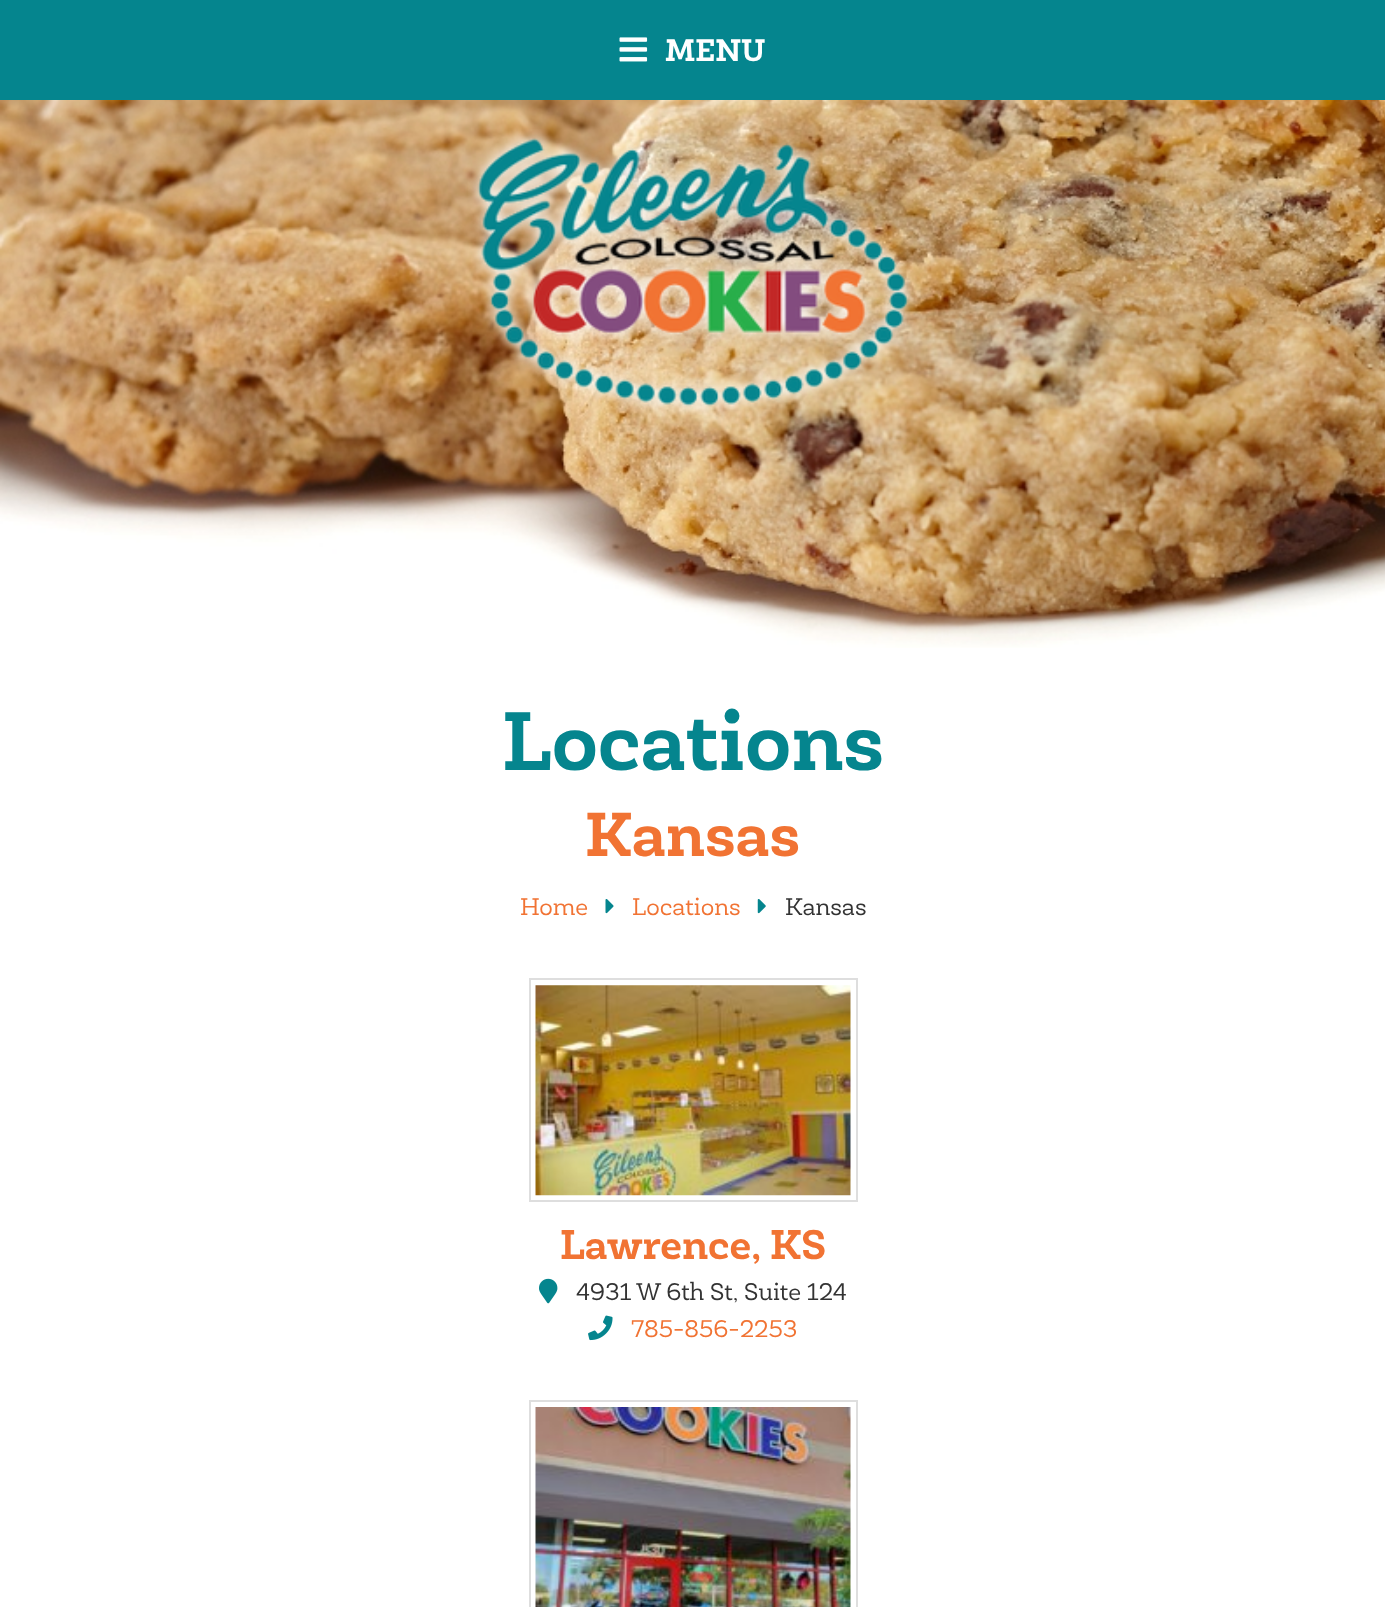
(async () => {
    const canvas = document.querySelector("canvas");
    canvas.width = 1385;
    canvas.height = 1607;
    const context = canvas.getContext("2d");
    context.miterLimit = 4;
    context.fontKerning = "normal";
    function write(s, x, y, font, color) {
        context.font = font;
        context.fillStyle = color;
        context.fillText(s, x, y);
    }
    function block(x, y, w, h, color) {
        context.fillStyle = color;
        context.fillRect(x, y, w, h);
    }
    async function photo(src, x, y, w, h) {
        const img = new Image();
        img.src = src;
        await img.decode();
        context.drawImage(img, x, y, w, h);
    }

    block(0, 0, 1385, 1607, "rgb(255, 255, 255)");
    block(0, 0, 1385, 100, "rgb(5, 133, 142)");
    await photo("media/1.png", 619, 37, 29, 25);
    write("MENU", 665, 61, "bold 31.5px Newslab", "rgb(255, 255, 255)");
    await photo("media/3.png", 0, 100, 1385, 548);
    await photo("media/2.png", 468, 129, 450, 286);
    write("Locations", 502, 770, "bold 84px Newslab", "rgb(5, 133, 142)");
    write("Kansas", 585, 856, "bold 63px Newslab", "rgb(241, 115, 51)");
    write("Home", 520, 915, "24.5px Newslab", "rgb(241, 115, 51)");
    await photo("media/4.png", 605, 899, 9, 15);
    write("Locations", 632, 915, "24.5px Newslab", "rgb(241, 115, 51)");
    await photo("media/5.png", 757, 899, 9, 15);
    write("Kansas", 785, 915, "24.5px Newslab", "rgb(51, 51, 51)");
    context.strokeStyle = "rgb(222, 222, 222)";
    context.lineWidth = 2;
    context.strokeRect(530, 979, 327, 222);
    await photo("media/6.png", 535, 985, 316, 211);
    write("Lawrence, KS", 560, 1259, "bold 42px Newslab", "rgb(241, 115, 51)");
    await photo("media/7.png", 539, 1278, 19, 26);
    write("4931 W 6th St, Suite 124", 576, 1300, "24.5px Newslab", "rgb(51, 51, 51)");
    await photo("media/8.png", 588, 1315, 25, 26);
    write("785-856-2253", 631, 1337, "24.5px Newslab", "rgb(241, 115, 51)");
    context.strokeRect(530, 1401, 327, 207);
    await photo("media/9.png", 535, 1407, 316, 200);
})();
